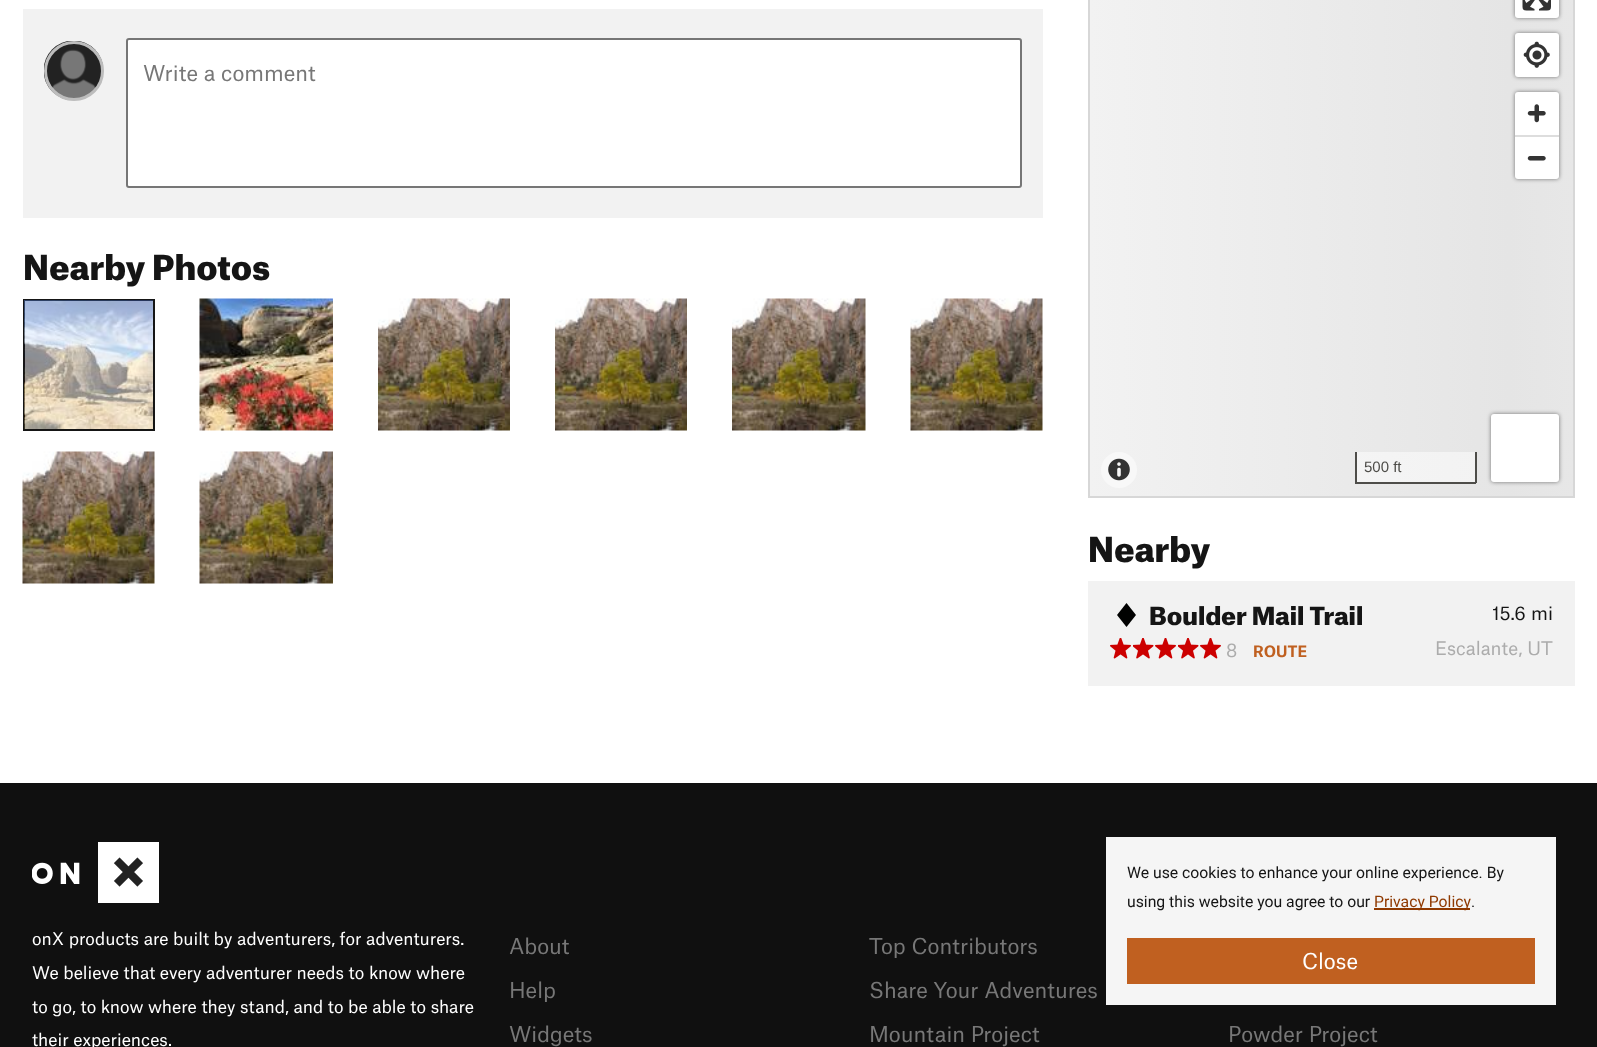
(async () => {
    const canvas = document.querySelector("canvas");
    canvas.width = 1597;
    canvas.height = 1047;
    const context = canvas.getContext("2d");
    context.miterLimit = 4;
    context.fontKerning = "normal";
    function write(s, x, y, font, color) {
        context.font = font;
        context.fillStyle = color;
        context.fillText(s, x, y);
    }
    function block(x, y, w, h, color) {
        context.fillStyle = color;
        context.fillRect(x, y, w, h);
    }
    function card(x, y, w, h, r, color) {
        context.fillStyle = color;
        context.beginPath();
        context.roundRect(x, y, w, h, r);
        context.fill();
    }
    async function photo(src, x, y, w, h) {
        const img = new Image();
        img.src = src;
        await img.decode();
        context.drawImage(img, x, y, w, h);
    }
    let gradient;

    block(0, 0, 1597, 1047, "rgb(255, 255, 255)");
    block(23, 9, 1020, 209, "rgb(242, 242, 242)");
    await photo("media/1.png", 44, 41, 60, 60);
    context.beginPath();
    context.arc(74, 71, 28.5, 0, Math.PI * 2);
    context.strokeStyle = "rgb(189, 189, 189)";
    context.lineWidth = 3;
    context.stroke();
    context.fillStyle = "rgb(255, 255, 255)";
    context.beginPath();
    context.roundRect(127, 39, 894, 148, 2);
    context.fill();
    context.strokeStyle = "rgb(118, 118, 118)";
    context.lineWidth = 2;
    context.stroke();
    write("Write a comment", 143, 81, "21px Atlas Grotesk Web", "rgb(119, 119, 119)");
    write("Nearby Photos", 23, 280, "900 33px Atlas Grotesk Web", "rgb(21, 21, 21)");
    context.strokeStyle = "rgb(21, 21, 21)";
    context.strokeRect(24, 300, 130, 130);
    await photo("media/2.png", 24, 300, 129, 129);
    await photo("media/3.png", 199, 298, 134, 133);
    await photo("media/4.png", 378, 298, 132, 133);
    await photo("media/4.png", 555, 298, 132, 133);
    await photo("media/5.png", 732, 298, 134, 133);
    await photo("media/6.png", 910, 298, 133, 133);
    await photo("media/6.png", 22, 451, 133, 133);
    await photo("media/7.png", 199, 451, 134, 133);
    gradient = context.createLinearGradient(1089, 228, 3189, 228);
    gradient.addColorStop(0, "rgb(242, 242, 242)");
    gradient.addColorStop(0.2, "rgb(229, 229, 229)");
    gradient.addColorStop(0.4, "rgb(242, 242, 242)");
    gradient.addColorStop(1, "rgb(242, 242, 242)");
    context.fillStyle = gradient;
    context.fillRect(1090, 0, 483, 496);
    gradient = context.createLinearGradient(1089, 228, 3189, 228);
    gradient.addColorStop(0, "rgb(249, 249, 249)");
    gradient.addColorStop(0.2, "rgb(242, 242, 242)");
    gradient.addColorStop(0.4, "rgb(249, 249, 249)");
    gradient.addColorStop(1, "rgb(249, 249, 249)");
    context.fillStyle = gradient;
    context.fillRect(1357, 452, 118, 30);
    context.strokeStyle = "rgb(215, 215, 215)";
    context.strokeRect(1089, -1, 485, 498);
    context.fillStyle = "rgb(248, 248, 248)";
    context.beginPath();
    context.arc(1119, 470, 18, 0, Math.PI * 2);
    context.fill();
    await photo("media/8.png", 1108, 458, 22, 23);
    context.fillStyle = "rgba(0, 0, 0, 0.5)";
    context.filter = "blur(2px)";
    context.beginPath();
    context.roundRect(1515, -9, 44, 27, 3);
    context.fill();
    context.filter = "none";
    card(1515, -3, 44, 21, 3, "rgb(255, 255, 255)");
    await photo("media/9.png", 1522, 0, 29, 11);
    context.fillStyle = "rgba(0, 0, 0, 0.5)";
    context.filter = "blur(2px)";
    context.beginPath();
    context.roundRect(1515, 33, 44, 44, 3);
    context.fill();
    context.filter = "none";
    card(1515, 33, 44, 44, 3, "rgb(255, 255, 255)");
    await photo("media/10.png", 1523, 41, 27, 27);
    context.fillStyle = "rgba(0, 0, 0, 0.5)";
    context.filter = "blur(2px)";
    context.beginPath();
    context.roundRect(1515, 92, 44, 87, 3);
    context.fill();
    context.filter = "none";
    card(1515, 92, 44, 87, 3, "rgb(255, 255, 255)");
    await photo("media/11.png", 1527, 104, 19, 19);
    block(1515, 135, 44, 2, "rgb(221, 221, 221)");
    await photo("media/12.png", 1527, 156, 19, 5);
    block(1475, 452, 2, 31, "rgb(78, 77, 73)");
    block(1355, 482, 121, 2, "rgb(78, 77, 73)");
    block(1355, 452, 2, 31, "rgb(78, 77, 73)");
    write("500 ft", 1364, 472, "15px Liberation Sans", "rgb(78, 77, 73)");
    context.fillStyle = "rgba(0, 0, 0, 0.5)";
    context.filter = "blur(2px)";
    context.beginPath();
    context.roundRect(1491, 414, 68, 68, 3);
    context.fill();
    context.filter = "none";
    card(1491, 414, 68, 68, 3, "rgb(255, 255, 255)");
    write("Nearby", 1088, 562, "900 33px Atlas Grotesk Web", "rgb(21, 21, 21)");
    block(1088, 581, 487, 105, "rgb(242, 242, 242)");
    write("Boulder Mail Trail", 1149, 625, "900 24px Atlas Grotesk Web", "rgb(21, 21, 21)");
    context.fillStyle = "rgb(1, 2, 1)";
    context.beginPath();
    context.moveTo(1126.5, 603);
    context.lineTo(1117, 615);
    context.lineTo(1126.5, 627);
    context.lineTo(1136, 615);
    context.closePath();
    context.fill("evenodd");
    write("15.6", 1492, 620, "18px Atlas Grotesk Web", "rgb(21, 21, 21)");
    write("mi", 1531, 620, "18px Atlas Grotesk Web", "rgb(21, 21, 21)");
    await photo("media/13.png", 1110, 638, 21, 21);
    await photo("media/14.png", 1133, 638, 21, 21);
    await photo("media/13.png", 1155, 638, 21, 21);
    await photo("media/14.png", 1178, 638, 21, 21);
    await photo("media/13.png", 1200, 638, 21, 21);
    write("8", 1226, 657, "18px Atlas Grotesk Web", "rgb(172, 172, 172)");
    write("ROUTE", 1253, 657, "bold 15px Atlas Grotesk Web", "rgb(192, 96, 32)");
    write("Escalante, UT", 1435, 655, "18px Atlas Grotesk Web", "rgb(172, 172, 172)");
    block(0, 783, 1597, 264, "rgb(16, 16, 16)");
    block(1106, 837, 450, 168, "rgb(245, 245, 245)");
    write("We use cookies to enhance your online experience. By", 1127, 878, "15.75px Roboto", "rgb(21, 21, 21)");
    write("using this website you agree to our", 1127, 907, "15.75px Roboto", "rgb(21, 21, 21)");
    block(1374, 908, 96, 2, "rgb(143, 57, 0)");
    write("Privacy Policy", 1374, 907, "15.75px Roboto", "rgb(143, 57, 0)");
    write(".", 1471, 907, "15.75px Roboto", "rgb(21, 21, 21)");
    block(1127, 938, 408, 46, "rgb(192, 96, 32)");
    write("Close", 1302, 969, "21px Atlas Grotesk Web", "rgb(255, 255, 255)");
    await photo("media/15.png", 32, 842, 127, 61);
    write("onX products are built by adventurers, for adventurers.", 32, 945, "16.8px Atlas Grotesk Web", "rgb(255, 255, 255)");
    write("We believe that every adventurer needs to know where", 32, 979, "16.8px Atlas Grotesk Web", "rgb(255, 255, 255)");
    write("to go, to know where they stand, and to be able to share", 32, 1013, "16.8px Atlas Grotesk Web", "rgb(255, 255, 255)");
    write("their experiences.", 32, 1046, "16.8px Atlas Grotesk Web", "rgb(255, 255, 255)");
    write("About", 509, 954, "21px Atlas Grotesk Web", "rgb(119, 119, 119)");
    write("Top Contributors", 869, 954, "21px Atlas Grotesk Web", "rgb(119, 119, 119)");
    write("Help", 509, 998, "21px Atlas Grotesk Web", "rgb(119, 119, 119)");
    write("Share Your Adventures", 869, 998, "21px Atlas Grotesk Web", "rgb(119, 119, 119)");
    write("Widgets", 509, 1042, "21px Atlas Grotesk Web", "rgb(119, 119, 119)");
    write("Mountain Project", 869, 1042, "21px Atlas Grotesk Web", "rgb(119, 119, 119)");
    write("Powder Project", 1228, 1042, "21px Atlas Grotesk Web", "rgb(119, 119, 119)");
})();
